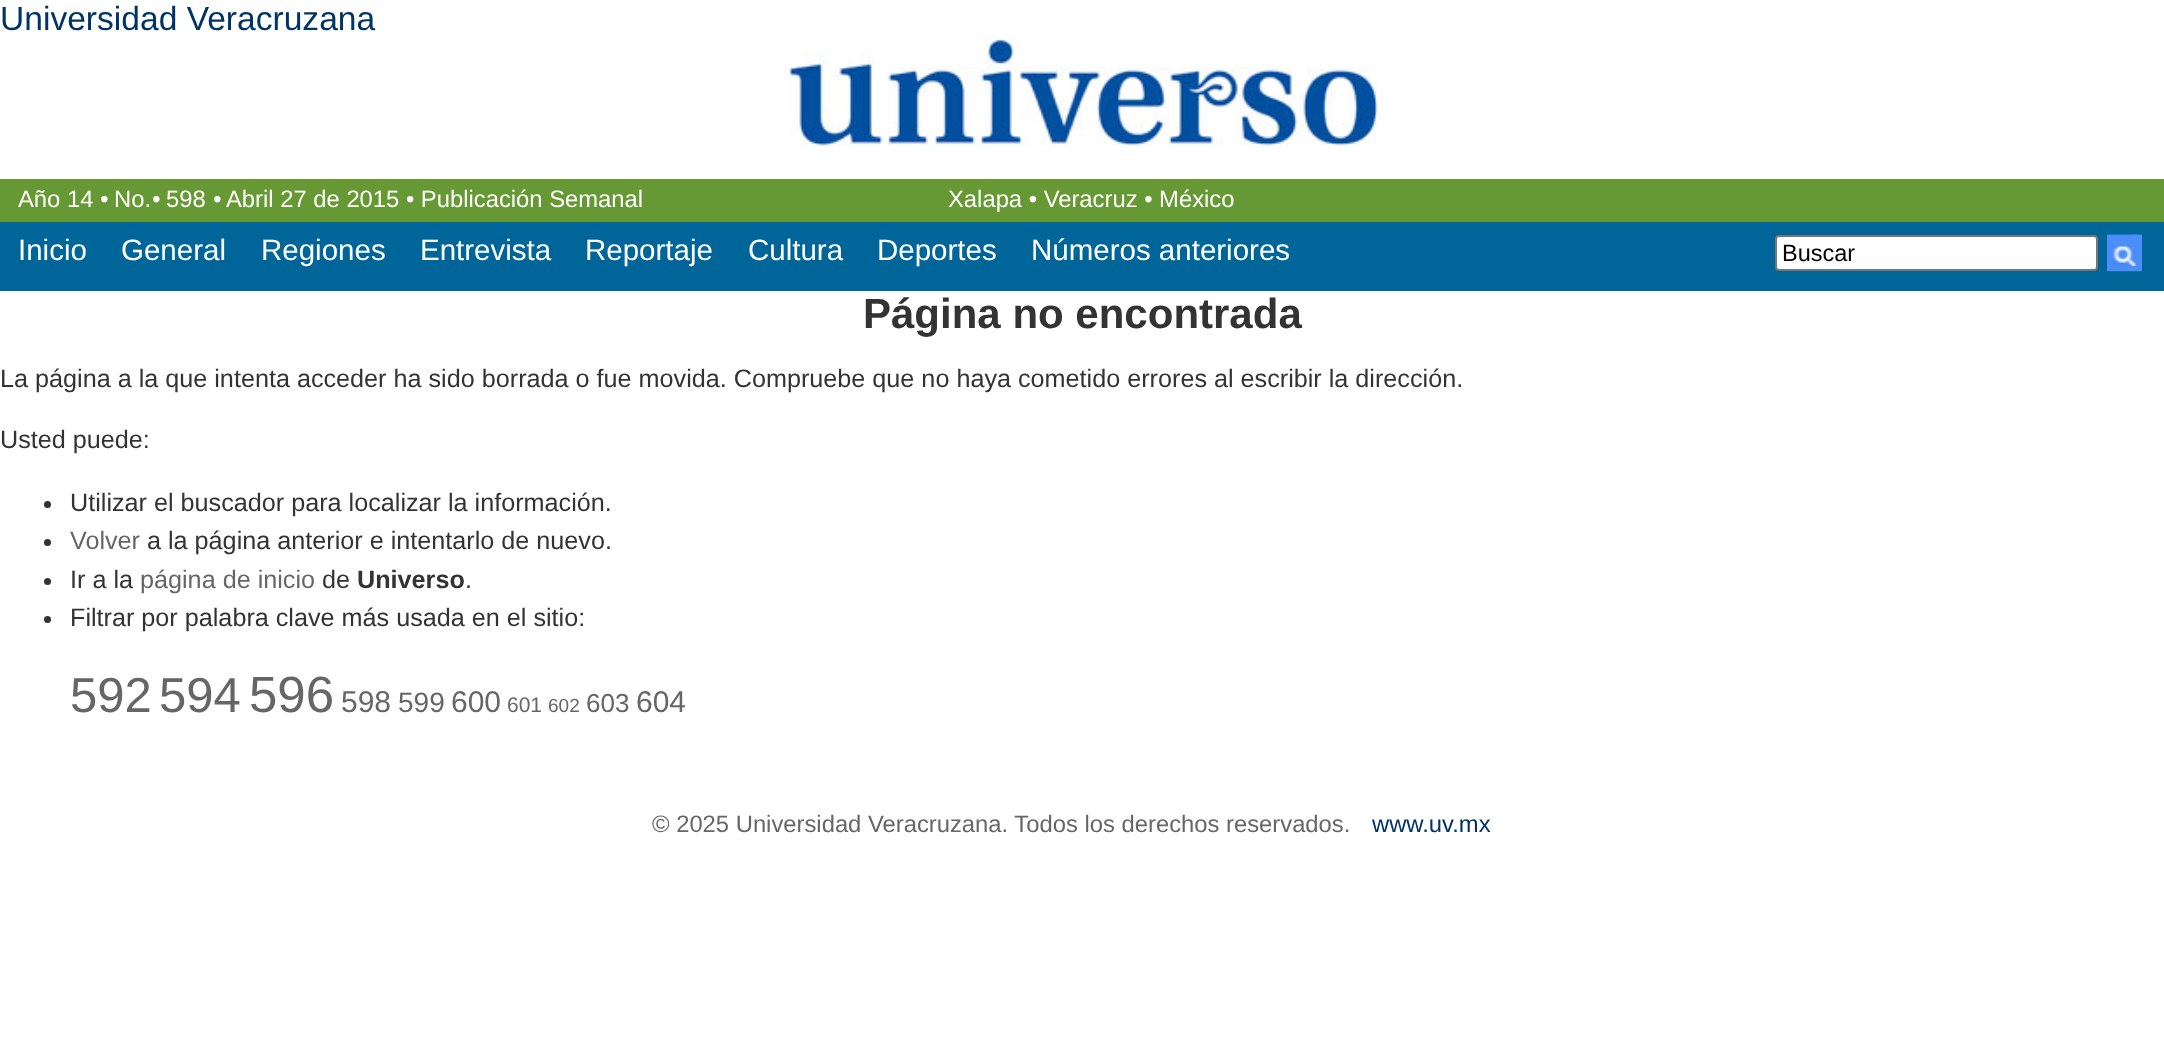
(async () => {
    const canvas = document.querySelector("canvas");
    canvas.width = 2164;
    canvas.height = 1058;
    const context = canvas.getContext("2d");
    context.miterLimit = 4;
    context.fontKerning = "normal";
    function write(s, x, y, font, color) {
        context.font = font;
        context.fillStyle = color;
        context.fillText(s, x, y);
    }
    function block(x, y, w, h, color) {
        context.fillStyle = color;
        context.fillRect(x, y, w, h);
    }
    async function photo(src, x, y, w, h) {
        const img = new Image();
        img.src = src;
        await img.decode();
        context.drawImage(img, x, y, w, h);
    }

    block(0, 0, 2164, 1058, "rgb(255, 255, 255)");
    write("Universidad Veracruzana", 0, 30, "33.6px Liberation Sans", "rgb(0, 51, 102)");
    await photo("media/1.png", 789, 38, 589, 108);
    block(0, 179, 2164, 43, "rgb(102, 153, 51)");
    write("Año 14", 18, 207, "23.8px Liberation Sans", "rgb(255, 255, 255)");
    write("•", 100, 207, "italic 23.8px Liberation Sans", "rgb(255, 255, 255)");
    write("No.", 114, 207, "23.8px Liberation Sans", "rgb(255, 255, 255)");
    write("•", 152, 207, "italic 23.8px Liberation Sans", "rgb(255, 255, 255)");
    write("598", 166, 207, "23.8px Liberation Sans", "rgb(255, 255, 255)");
    write("•", 213, 207, "italic 23.8px Liberation Sans", "rgb(255, 255, 255)");
    write("Abril 27 de 2015 • Publicación Semanal", 226, 207, "23.8px Liberation Sans", "rgb(255, 255, 255)");
    write("Xalapa • Veracruz • México", 948, 207, "23.8px Liberation Sans", "rgb(255, 255, 255)");
    block(0, 222, 2164, 69, "rgb(0, 102, 153)");
    write("Inicio", 18, 260, "29.5px Liberation Sans", "rgb(255, 255, 255)");
    write("General", 121, 260, "29.5px Liberation Sans", "rgb(255, 255, 255)");
    write("Regiones", 261, 260, "29.5px Liberation Sans", "rgb(255, 255, 255)");
    write("Entrevista", 420, 260, "29.5px Liberation Sans", "rgb(255, 255, 255)");
    write("Reportaje", 585, 260, "29.5px Liberation Sans", "rgb(255, 255, 255)");
    write("Cultura", 748, 260, "29.5px Liberation Sans", "rgb(255, 255, 255)");
    write("Deportes", 877, 260, "29.5px Liberation Sans", "rgb(255, 255, 255)");
    write("Números anteriores", 1031, 260, "29.5px Liberation Sans", "rgb(255, 255, 255)");
    context.beginPath();
    context.roundRect(1776, 236, 321, 34, 3);
    context.fill();
    context.strokeStyle = "rgb(118, 118, 118)";
    context.lineWidth = 2;
    context.stroke();
    write("Buscar", 1782, 261, "23.5px Liberation Sans", "rgb(0, 0, 0)");
    await photo("media/2.png", 2107, 234, 35, 38);
    context.strokeStyle = "rgb(75, 141, 250)";
    context.lineWidth = 5;
    context.strokeRect(2109.5, 237.5, 30, 31);
    write("Página no encontrada", 863, 328, "bold 42px Liberation Sans", "rgb(51, 51, 51)");
    write("La página a la que intenta acceder ha sido borrada o fue movida. Compruebe que no haya cometido errores al escribir la dirección.", 0, 387, "25.2px Liberation Sans", "rgb(51, 51, 51)");
    write("Usted puede:", 0, 448, "25.2px Liberation Sans", "rgb(51, 51, 51)");
    context.beginPath();
    context.arc(47.5, 504.5, 3.5, 0, Math.PI * 2);
    context.fill();
    write("Utilizar el buscador para localizar la información.", 70, 511, "25.2px Liberation Sans", "rgb(51, 51, 51)");
    context.beginPath();
    context.arc(47.5, 542.5, 3.5, 0, Math.PI * 2);
    context.fill();
    write("Volver", 70, 549, "25.2px Liberation Sans", "rgb(102, 102, 102)");
    write("a la página anterior e intentarlo de nuevo.", 147, 549, "25.2px Liberation Sans", "rgb(51, 51, 51)");
    context.beginPath();
    context.arc(47.5, 581.5, 3.5, 0, Math.PI * 2);
    context.fill();
    write("Ir a la", 70, 588, "25.2px Liberation Sans", "rgb(51, 51, 51)");
    write("página de inicio", 140, 588, "25.2px Liberation Sans", "rgb(102, 102, 102)");
    write("de", 322, 588, "25.2px Liberation Sans", "rgb(51, 51, 51)");
    write("Universo", 357, 588, "bold 25.2px Liberation Sans", "rgb(51, 51, 51)");
    write(".", 465, 588, "25.2px Liberation Sans", "rgb(51, 51, 51)");
    context.beginPath();
    context.arc(47.5, 619.5, 3.5, 0, Math.PI * 2);
    context.fill();
    write("Filtrar por palabra clave más usada en el sitio:", 70, 626, "25.2px Liberation Sans", "rgb(51, 51, 51)");
    write("592", 70, 712, "49px Liberation Sans", "rgb(102, 102, 102)");
    write("594", 159, 712, "49px Liberation Sans", "rgb(102, 102, 102)");
    write("596", 249, 712, "51px Liberation Sans", "rgb(102, 102, 102)");
    write("598", 341, 712, "30px Liberation Sans", "rgb(102, 102, 102)");
    write("599", 398, 712, "28px Liberation Sans", "rgb(102, 102, 102)");
    write("600", 451, 712, "30px Liberation Sans", "rgb(102, 102, 102)");
    write("601", 507, 712, "21px Liberation Sans", "rgb(102, 102, 102)");
    write("602", 548, 712, "19px Liberation Sans", "rgb(102, 102, 102)");
    write("603", 586, 712, "26px Liberation Sans", "rgb(102, 102, 102)");
    write("604", 636, 712, "30px Liberation Sans", "rgb(102, 102, 102)");
    write("© 2025 Universidad Veracruzana. Todos los derechos reservados.", 652, 832, "23.8px Liberation Sans", "rgb(102, 102, 102)");
    write("www.uv.mx", 1372, 832, "23.8px Liberation Sans", "rgb(0, 51, 102)");
})();
